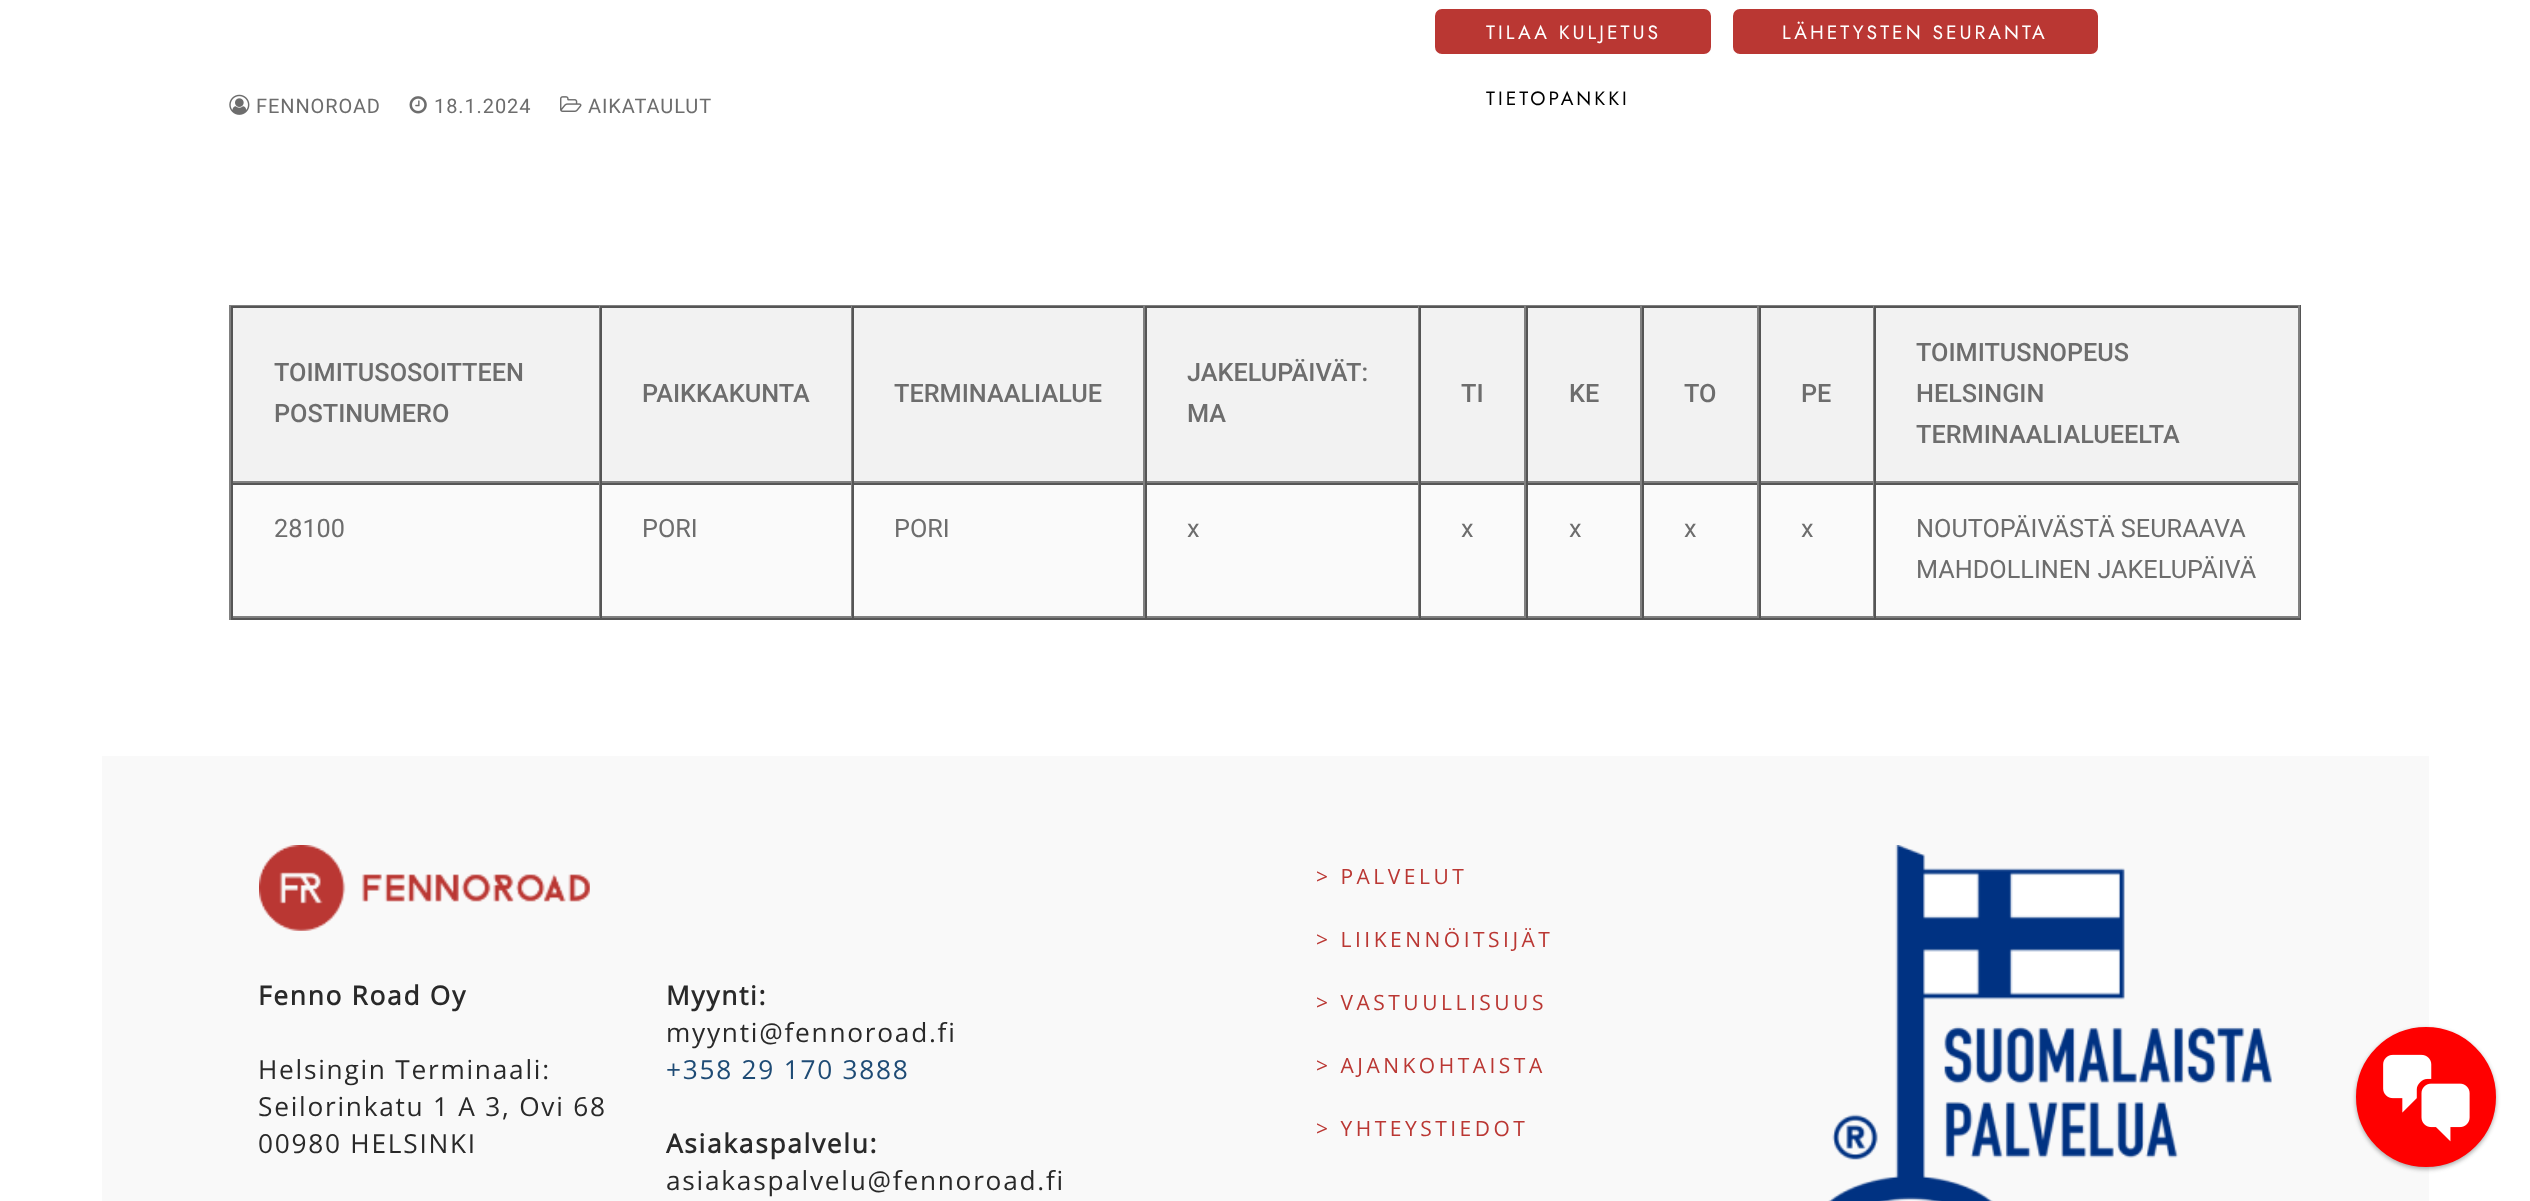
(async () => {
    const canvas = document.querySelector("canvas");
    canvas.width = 2530;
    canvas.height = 1201;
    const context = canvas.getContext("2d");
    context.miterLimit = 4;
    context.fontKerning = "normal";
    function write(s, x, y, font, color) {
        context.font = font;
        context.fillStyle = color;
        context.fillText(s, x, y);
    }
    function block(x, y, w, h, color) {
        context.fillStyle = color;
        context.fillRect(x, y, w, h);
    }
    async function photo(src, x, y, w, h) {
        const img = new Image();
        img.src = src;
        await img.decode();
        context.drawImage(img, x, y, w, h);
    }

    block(0, 0, 2530, 1201, "rgb(255, 255, 255)");
    context.fillStyle = "rgb(186, 55, 51)";
    context.beginPath();
    context.roundRect(1434, 8, 278, 47, 8);
    context.fill();
    context.strokeStyle = "rgb(255, 255, 255)";
    context.lineWidth = 2;
    context.stroke();
    context.letterSpacing = "3px";
    write("TILAA KULJETUS", 1486, 39, "19.25px Jost", "rgb(255, 255, 255)");
    context.fillStyle = "rgb(186, 55, 51)";
    context.beginPath();
    context.roundRect(1732, 8, 367, 47, 8);
    context.fill();
    context.stroke();
    write("LÄHETYSTEN SEURANTA", 1782, 39, "19.25px Jost", "rgb(255, 255, 255)");
    write("TIETOPANKKI", 1486, 105, "19.25px Jost", "rgb(0, 0, 0)");
    await photo("media/1.png", 229, 94, 21, 21);
    context.letterSpacing = "0.9px";
    write("FENNOROAD", 256, 113, "20px Roboto", "rgb(109, 109, 109)");
    await photo("media/2.png", 409, 96, 18, 18);
    write("18.1.2024", 434, 113, "20px Roboto", "rgb(109, 109, 109)");
    await photo("media/3.png", 560, 96, 22, 16);
    write("AIKATAULUT", 588, 113, "20px Roboto", "rgb(109, 109, 109)");
    block(229, 305, 2072, 1, "rgb(128, 128, 128)");
    block(2300, 305, 1, 315, "rgb(85, 85, 85)");
    block(229, 618, 2072, 2, "rgb(85, 85, 85)");
    block(229, 305, 2, 315, "rgb(128, 128, 128)");
    block(233, 308, 366, 173, "rgb(242, 242, 242)");
    block(231, 306, 2069, 2, "rgb(85, 85, 85)");
    block(599, 306, 1, 177, "rgb(128, 128, 128)");
    block(231, 481, 369, 2, "rgb(128, 128, 128)");
    block(231, 306, 2, 177, "rgb(85, 85, 85)");
    context.letterSpacing = "0px";
    write("TOIMITUSOSOITTEEN", 274, 381, "500 25.25px Roboto", "rgb(109, 109, 109)");
    write("POSTINUMERO", 274, 422, "500 25.25px Roboto", "rgb(109, 109, 109)");
    block(602, 308, 249, 173, "rgb(242, 242, 242)");
    block(851, 306, 1, 177, "rgb(128, 128, 128)");
    block(600, 481, 252, 2, "rgb(128, 128, 128)");
    block(600, 306, 2, 177, "rgb(85, 85, 85)");
    write("PAIKKAKUNTA", 642, 402, "500 25.25px Roboto", "rgb(109, 109, 109)");
    block(854, 308, 289, 173, "rgb(242, 242, 242)");
    block(1143, 306, 2, 177, "rgb(128, 128, 128)");
    block(852, 481, 293, 2, "rgb(128, 128, 128)");
    block(852, 306, 2, 177, "rgb(85, 85, 85)");
    write("TERMINAALIALUE", 894, 402, "500 25.25px Roboto", "rgb(109, 109, 109)");
    block(1147, 308, 271, 173, "rgb(242, 242, 242)");
    block(1418, 306, 1, 177, "rgb(128, 128, 128)");
    block(1145, 481, 274, 2, "rgb(128, 128, 128)");
    block(1145, 306, 2, 177, "rgb(85, 85, 85)");
    write("JAKELUPÄIVÄT:", 1187, 381, "500 25.25px Roboto", "rgb(109, 109, 109)");
    write("MA", 1187, 422, "500 25.25px Roboto", "rgb(109, 109, 109)");
    block(1421, 308, 103, 173, "rgb(242, 242, 242)");
    block(1524, 306, 2, 177, "rgb(128, 128, 128)");
    block(1419, 481, 107, 2, "rgb(128, 128, 128)");
    block(1419, 306, 2, 177, "rgb(85, 85, 85)");
    write("TI", 1461, 402, "500 25.25px Roboto", "rgb(109, 109, 109)");
    block(1528, 308, 112, 173, "rgb(242, 242, 242)");
    block(1640, 306, 2, 177, "rgb(128, 128, 128)");
    block(1526, 481, 116, 2, "rgb(128, 128, 128)");
    block(1526, 306, 2, 177, "rgb(85, 85, 85)");
    write("KE", 1569, 402, "500 25.25px Roboto", "rgb(109, 109, 109)");
    block(1644, 308, 113, 173, "rgb(242, 242, 242)");
    block(1757, 306, 2, 177, "rgb(128, 128, 128)");
    block(1642, 481, 117, 2, "rgb(128, 128, 128)");
    block(1642, 306, 2, 177, "rgb(85, 85, 85)");
    write("TO", 1684, 402, "500 25.25px Roboto", "rgb(109, 109, 109)");
    block(1761, 308, 112, 173, "rgb(242, 242, 242)");
    block(1873, 306, 1, 177, "rgb(128, 128, 128)");
    block(1759, 481, 115, 2, "rgb(128, 128, 128)");
    block(1759, 306, 2, 177, "rgb(85, 85, 85)");
    write("PE", 1801, 402, "500 25.25px Roboto", "rgb(109, 109, 109)");
    block(1876, 308, 422, 173, "rgb(242, 242, 242)");
    block(2298, 306, 2, 177, "rgb(128, 128, 128)");
    block(1874, 481, 426, 2, "rgb(128, 128, 128)");
    block(1874, 306, 2, 177, "rgb(85, 85, 85)");
    write("TOIMITUSNOPEUS", 1916, 361, "500 25.25px Roboto", "rgb(109, 109, 109)");
    write("HELSINGIN", 1916, 402, "500 25.25px Roboto", "rgb(109, 109, 109)");
    write("TERMINAALIALUEELTA", 1916, 443, "500 25.25px Roboto", "rgb(109, 109, 109)");
    block(233, 485, 366, 131, "rgb(250, 250, 250)");
    block(231, 483, 2069, 2, "rgb(85, 85, 85)");
    block(599, 483, 1, 135, "rgb(128, 128, 128)");
    block(231, 616, 369, 2, "rgb(128, 128, 128)");
    block(231, 483, 2, 135, "rgb(85, 85, 85)");
    write("28100", 274, 537, "25.25px Roboto", "rgb(109, 109, 109)");
    block(602, 485, 249, 131, "rgb(250, 250, 250)");
    block(851, 483, 1, 135, "rgb(128, 128, 128)");
    block(600, 616, 252, 2, "rgb(128, 128, 128)");
    block(600, 483, 2, 135, "rgb(85, 85, 85)");
    write("PORI", 642, 537, "25.25px Roboto", "rgb(109, 109, 109)");
    block(854, 485, 289, 131, "rgb(250, 250, 250)");
    block(1143, 483, 2, 135, "rgb(128, 128, 128)");
    block(852, 616, 293, 2, "rgb(128, 128, 128)");
    block(852, 483, 2, 135, "rgb(85, 85, 85)");
    write("PORI", 894, 537, "25.25px Roboto", "rgb(109, 109, 109)");
    block(1147, 485, 271, 131, "rgb(250, 250, 250)");
    block(1418, 483, 1, 135, "rgb(128, 128, 128)");
    block(1145, 616, 274, 2, "rgb(128, 128, 128)");
    block(1145, 483, 2, 135, "rgb(85, 85, 85)");
    write("x", 1187, 537, "25.25px Roboto", "rgb(109, 109, 109)");
    block(1421, 485, 103, 131, "rgb(250, 250, 250)");
    block(1524, 483, 2, 135, "rgb(128, 128, 128)");
    block(1419, 616, 107, 2, "rgb(128, 128, 128)");
    block(1419, 483, 2, 135, "rgb(85, 85, 85)");
    write("x", 1461, 537, "25.25px Roboto", "rgb(109, 109, 109)");
    block(1528, 485, 112, 131, "rgb(250, 250, 250)");
    block(1640, 483, 2, 135, "rgb(128, 128, 128)");
    block(1526, 616, 116, 2, "rgb(128, 128, 128)");
    block(1526, 483, 2, 135, "rgb(85, 85, 85)");
    write("x", 1569, 537, "25.25px Roboto", "rgb(109, 109, 109)");
    block(1644, 485, 113, 131, "rgb(250, 250, 250)");
    block(1757, 483, 2, 135, "rgb(128, 128, 128)");
    block(1642, 616, 117, 2, "rgb(128, 128, 128)");
    block(1642, 483, 2, 135, "rgb(85, 85, 85)");
    write("x", 1684, 537, "25.25px Roboto", "rgb(109, 109, 109)");
    block(1761, 485, 112, 131, "rgb(250, 250, 250)");
    block(1873, 483, 1, 135, "rgb(128, 128, 128)");
    block(1759, 616, 115, 2, "rgb(128, 128, 128)");
    block(1759, 483, 2, 135, "rgb(85, 85, 85)");
    write("x", 1801, 537, "25.25px Roboto", "rgb(109, 109, 109)");
    block(1876, 485, 422, 131, "rgb(250, 250, 250)");
    block(2298, 483, 2, 135, "rgb(128, 128, 128)");
    block(1874, 616, 426, 2, "rgb(128, 128, 128)");
    block(1874, 483, 2, 135, "rgb(85, 85, 85)");
    write("NOUTOPÄIVÄSTÄ SEURAAVA", 1916, 537, "25.25px Roboto", "rgb(109, 109, 109)");
    write("MAHDOLLINEN JAKELUPÄIVÄ", 1916, 578, "25.25px Roboto", "rgb(109, 109, 109)");
    block(102, 756, 2327, 445, "rgb(249, 249, 249)");
    await photo("media/4.png", 259, 845, 331, 86);
    context.letterSpacing = "1.75px";
    write("Fenno Road Oy", 258, 1005, "bold 26.25px Open Sans", "rgb(41, 41, 41)");
    write("Helsingin Terminaali:", 258, 1079, "26.25px Open Sans", "rgb(41, 41, 41)");
    write("Seilorinkatu 1 A 3, Ovi 68", 258, 1116, "26.25px Open Sans", "rgb(41, 41, 41)");
    write("00980 HELSINKI", 258, 1153, "26.25px Open Sans", "rgb(41, 41, 41)");
    write("Myynti:", 666, 1005, "bold 26.25px Open Sans", "rgb(41, 41, 41)");
    write("myynti@fennoroad.fi", 666, 1042, "26.25px Open Sans", "rgb(41, 41, 41)");
    write("+358 29 170 3888", 666, 1079, "26.25px Open Sans", "rgb(30, 75, 117)");
    write("Asiakaspalvelu:", 666, 1153, "bold 26.25px Open Sans", "rgb(41, 41, 41)");
    write("asiakaspalvelu@fennoroad.fi", 666, 1190, "26.25px Open Sans", "rgb(41, 41, 41)");
    context.letterSpacing = "3.5px";
    write("> PALVELUT", 1316, 884, "21px Open Sans", "rgb(186, 55, 51)");
    write("> LIIKENNÖITSIJÄT", 1316, 947, "21px Open Sans", "rgb(186, 55, 51)");
    write("> VASTUULLISUUS", 1316, 1010, "21px Open Sans", "rgb(186, 55, 51)");
    write("> AJANKOHTAISTA", 1316, 1073, "21px Open Sans", "rgb(186, 55, 51)");
    write("> YHTEYSTIEDOT", 1316, 1136, "21px Open Sans", "rgb(186, 55, 51)");
    await photo("media/5.png", 1828, 845, 444, 356);
    context.fillStyle = "rgba(0, 0, 0, 0.24)";
    context.filter = "blur(2px)";
    context.beginPath();
    context.roundRect(2356, 1029, 140, 140, 70);
    context.fill();
    context.filter = "none";
    context.fillStyle = "rgba(0, 0, 0, 0.12)";
    context.filter = "blur(2.5px)";
    context.beginPath();
    context.roundRect(2356, 1029, 140, 140, 70);
    context.fill();
    context.filter = "none";
    context.fillStyle = "rgb(255, 0, 0)";
    context.beginPath();
    context.arc(2426, 1097, 67.5, 0, Math.PI * 2);
    context.fill();
    context.strokeStyle = "rgb(255, 0, 0)";
    context.lineWidth = 5;
    context.stroke();
    await photo("media/6.png", 2383, 1054, 87, 88);
})();
